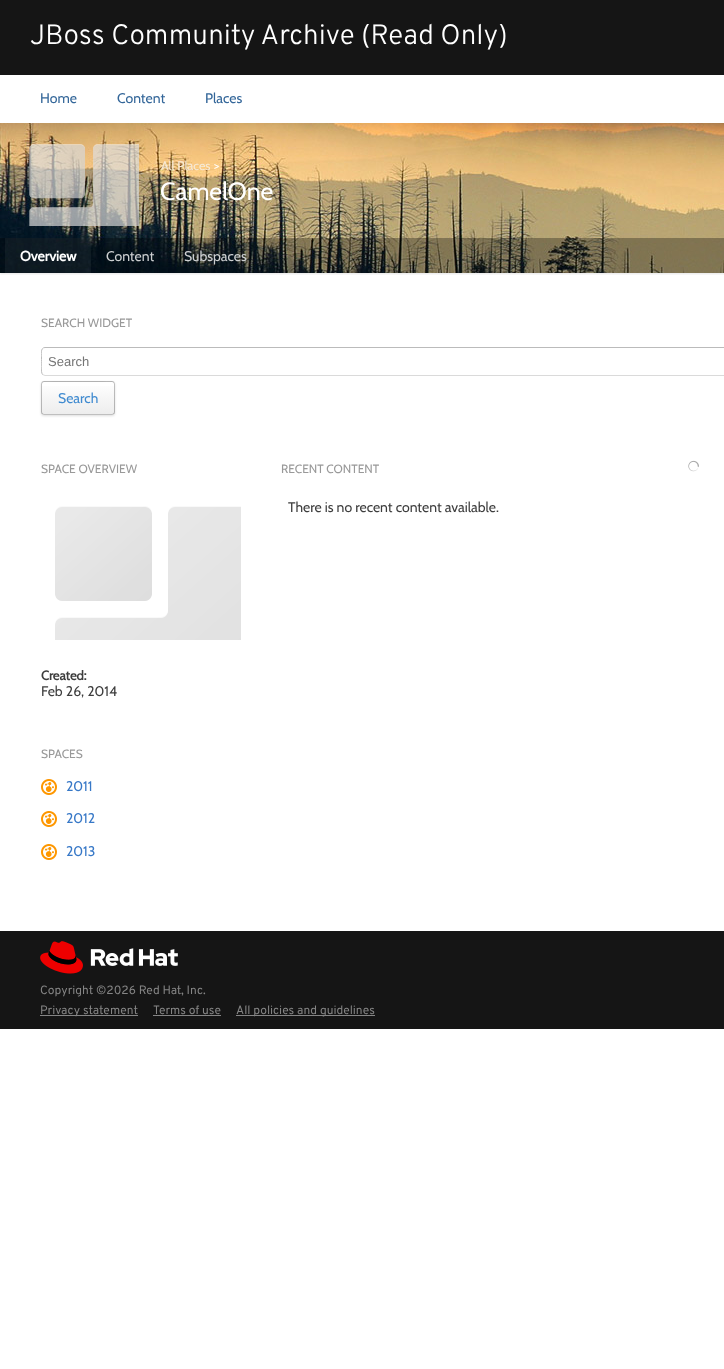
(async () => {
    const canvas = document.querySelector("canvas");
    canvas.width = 724;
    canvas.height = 1369;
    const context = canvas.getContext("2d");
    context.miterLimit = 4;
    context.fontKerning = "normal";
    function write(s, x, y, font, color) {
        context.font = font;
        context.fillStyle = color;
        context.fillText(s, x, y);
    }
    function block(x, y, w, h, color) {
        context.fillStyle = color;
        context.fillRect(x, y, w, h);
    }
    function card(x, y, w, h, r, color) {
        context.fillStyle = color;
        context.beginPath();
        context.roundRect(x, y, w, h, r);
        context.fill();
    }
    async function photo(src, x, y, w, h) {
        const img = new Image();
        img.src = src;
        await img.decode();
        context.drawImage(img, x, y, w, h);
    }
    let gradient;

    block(0, 0, 724, 1369, "rgb(255, 255, 255)");
    block(0, 0, 724, 75, "rgb(21, 21, 21)");
    write("JBoss Community Archive (Read Only)", 30, 44, "300 28px Overpass", "rgb(255, 255, 255)");
    write("Home", 40, 103, "14px Cabin", "rgb(51, 102, 153)");
    write("Content", 117, 103, "14px Cabin", "rgb(51, 102, 153)");
    write("Places", 205, 103, "14px Cabin", "rgb(51, 102, 153)");
    await photo("media/1.png", 0, 123, 724, 150);
    await photo("media/2.png", 29, 144, 110, 82);
    write("All Places", 161, 170, "12.5px Cabin", "rgb(246, 233, 213)");
    write(">", 214, 170, "12.5px Cabin", "rgb(255, 255, 255)");
    write("CamelOne", 160, 200, "25px Cabin", "rgb(255, 255, 255)");
    context.save();
    context.beginPath();
    context.rect(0, 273, 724, 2);
    context.clip();
    context.fillStyle = "rgba(0, 0, 0, 0.1)";
    context.filter = "blur(1px)";
    context.beginPath();
    context.rect(0, 239, 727, 35);
    context.fill();
    context.filter = "none";
    context.restore();
    block(0, 238, 724, 35, "rgba(0, 0, 0, 0.3)");
    block(5, 238, 86, 35, "rgba(255, 255, 255, 0.05)");
    write("Overview", 20, 261, "bold 14px Cabin", "rgb(255, 255, 255)");
    write("Content", 106, 261, "14px Cabin", "rgb(205, 207, 209)");
    write("Subspaces", 184, 261, "14px Cabin", "rgb(205, 207, 209)");
    write("SEARCH WIDGET", 41, 327, "12px Cabin", "rgb(153, 153, 153)");
    context.beginPath();
    context.moveTo(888.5, 374.5);
    context.lineTo(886, 375.5);
    context.lineTo(45, 375.5);
    context.lineTo(42.5, 374.5);
    context.strokeStyle = "rgb(218, 218, 218)";
    context.stroke();
    context.save();
    context.beginPath();
    context.roundRect(41, 309, 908, 116, 5);
    context.clip();
    context.beginPath();
    context.moveTo(42.5, 374.5);
    context.bezierCurveTo(40.5, 372, 41.5, 361, 41.5, 358);
    context.bezierCurveTo(41.5, 355.5, 40, 347.5, 45, 347.5);
    context.lineTo(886, 347.5);
    context.bezierCurveTo(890, 347.5, 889.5, 352, 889.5, 354.5);
    context.bezierCurveTo(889.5, 358, 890.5, 372, 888.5, 374.5);
    context.strokeStyle = "rgb(187, 187, 187)";
    context.stroke();
    context.restore();
    write("Search", 48, 366, "13px Liberation Sans", "rgb(117, 117, 117)");
    context.fillStyle = "rgba(0, 0, 0, 0.13)";
    context.filter = "blur(1px)";
    context.beginPath();
    context.roundRect(41, 382, 74, 34, 3);
    context.fill();
    context.filter = "none";
    card(41, 381, 74, 34, 3, "rgb(255, 255, 255)");
    context.save();
    context.beginPath();
    context.roundRect(41, 381, 74, 34, 3);
    context.clip();
    gradient = context.createLinearGradient(78, 350, 78, 382);
    gradient.addColorStop(0, "rgb(255, 255, 255)");
    gradient.addColorStop(1, "rgb(237, 237, 237)");
    context.fillStyle = gradient;
    context.fillRect(41, 381, 74, 1);
    context.restore();
    gradient = context.createLinearGradient(78, 382, 78, 414);
    gradient.addColorStop(0, "rgba(255, 255, 255, 0.07)");
    gradient.addColorStop(1, "rgba(0, 0, 0, 0.07)");
    context.fillStyle = gradient;
    context.fillRect(41, 386, 74, 28);
    context.fillStyle = "rgba(255, 255, 255, 0.4)";
    context.beginPath();
    context.moveTo(44, 383);
    context.lineTo(112, 383);
    context.bezierCurveTo(113, 383, 114, 384, 114, 385);
    context.bezierCurveTo(114, 379, 104, 382, 101, 382);
    context.lineTo(55, 382);
    context.bezierCurveTo(52, 382, 42, 379, 42, 385);
    context.bezierCurveTo(42, 384, 43, 383, 44, 383);
    context.closePath();
    context.fill();
    context.beginPath();
    context.roundRect(41.5, 381.5, 73, 33, 2.5);
    context.strokeStyle = "rgba(0, 0, 0, 0.25)";
    context.stroke();
    write("Search", 58, 403, "14px Cabin", "rgb(64, 139, 208)");
    write("SPACE OVERVIEW", 41, 473, "12px Cabin", "rgb(153, 153, 153)");
    await photo("media/3.png", 55, 506, 186, 134);
    write("Created:", 41, 680, "bold 13px Cabin", "rgb(61, 61, 61)");
    write("Feb 26, 2014", 41, 696, "14px Cabin", "rgb(61, 61, 61)");
    write("SPACES", 41, 758, "12px Cabin", "rgb(153, 153, 153)");
    await photo("media/4.png", 41, 779, 16, 16);
    write("2011", 66, 791, "14px Cabin", "rgb(55, 120, 199)");
    await photo("media/4.png", 41, 811, 16, 16);
    write("2012", 66, 823, "14px Cabin", "rgb(55, 120, 199)");
    await photo("media/4.png", 41, 844, 16, 16);
    write("2013", 66, 856, "14px Cabin", "rgb(55, 120, 199)");
    write("RECENT CONTENT", 281, 473, "12px Cabin", "rgb(153, 153, 153)");
    await photo("media/5.png", 688, 460, 11, 12);
    write("There is no recent content available.", 288, 512, "14px Cabin", "rgb(61, 61, 61)");
    block(0, 931, 724, 98, "rgb(21, 21, 21)");
    await photo("media/6.png", 40, 941, 138, 33);
    write("Copyright ©2026 Red Hat, Inc.", 40, 994, "12px Overpass", "rgb(133, 133, 133)");
    block(40, 1015, 98, 1, "rgb(133, 133, 133)");
    write("Privacy statement", 40, 1014, "12px Overpass", "rgb(133, 133, 133)");
    write("Terms of use", 153, 1014, "12px Overpass", "rgb(133, 133, 133)");
    block(153, 1015, 68, 1, "rgb(133, 133, 133)");
    block(236, 1015, 139, 1, "rgb(133, 133, 133)");
    write("All policies and guidelines", 236, 1014, "12px Overpass", "rgb(133, 133, 133)");
})();
